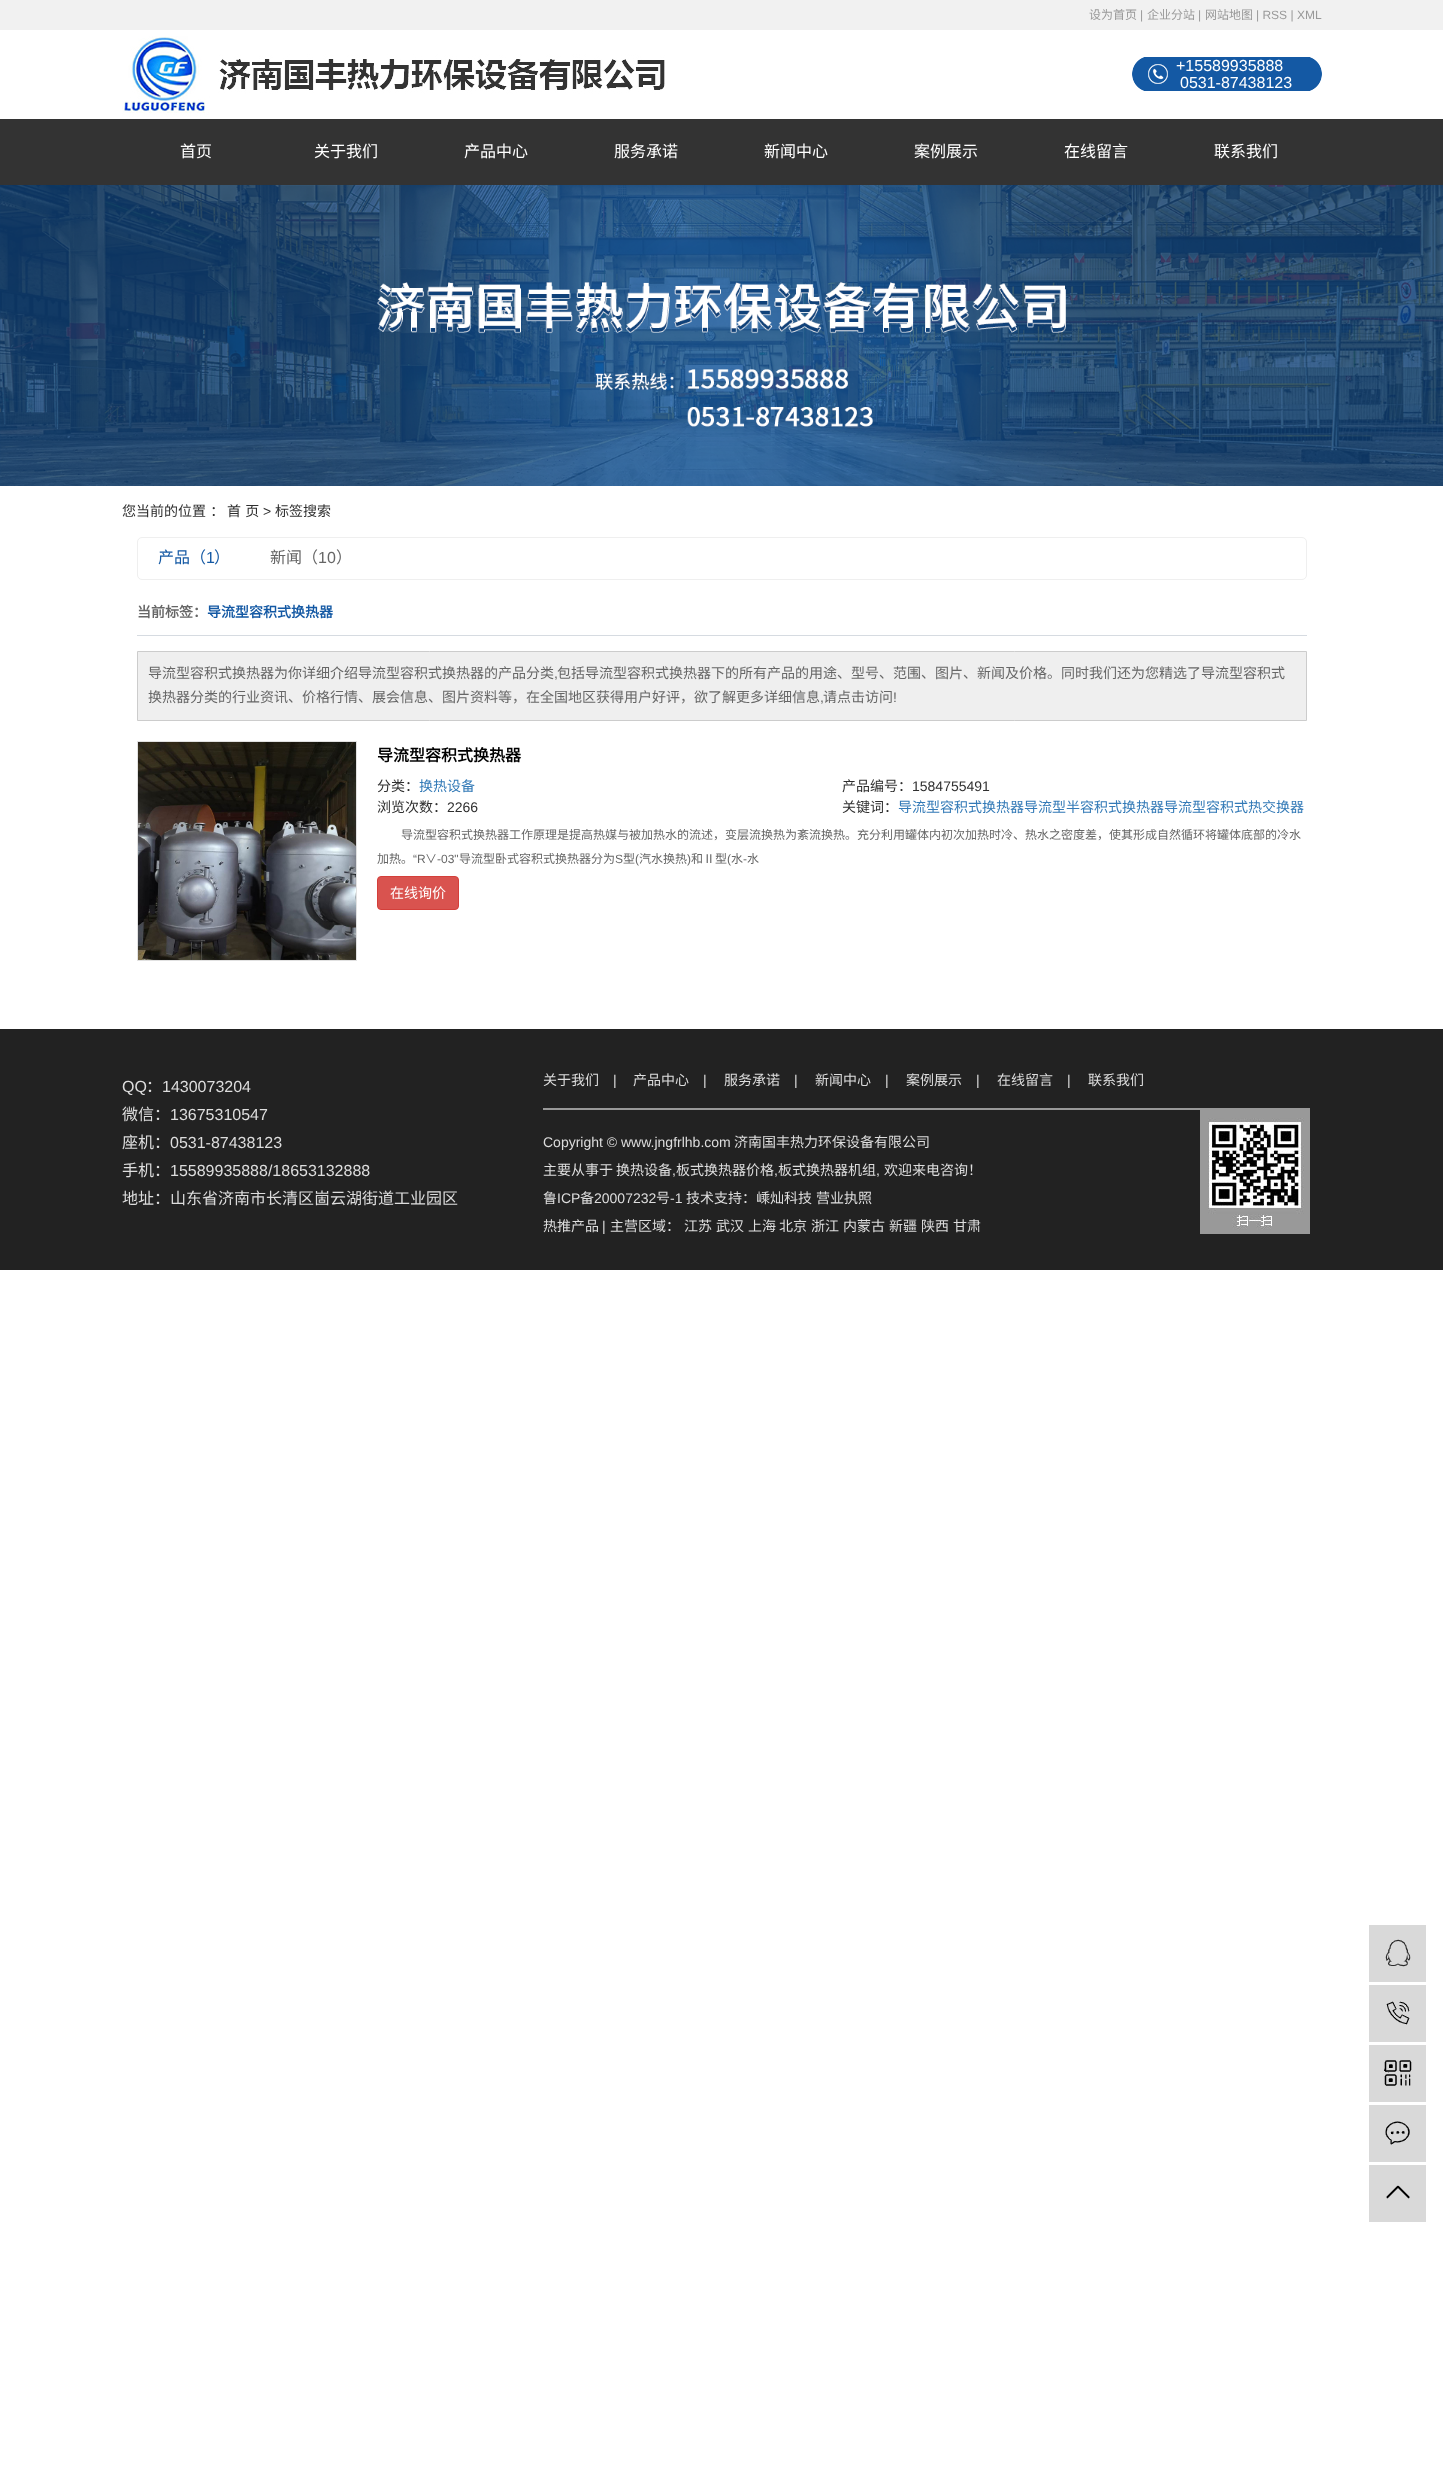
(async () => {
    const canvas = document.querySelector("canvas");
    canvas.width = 1443;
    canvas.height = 2472;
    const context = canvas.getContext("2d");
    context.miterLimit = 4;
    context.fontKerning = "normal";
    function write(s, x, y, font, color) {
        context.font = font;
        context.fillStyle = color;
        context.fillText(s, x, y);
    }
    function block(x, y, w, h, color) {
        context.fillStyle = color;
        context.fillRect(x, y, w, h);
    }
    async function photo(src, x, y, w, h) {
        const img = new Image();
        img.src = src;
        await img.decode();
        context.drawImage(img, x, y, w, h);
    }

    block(0, 0, 1443, 2472, "rgb(255, 255, 255)");
    block(0, 0, 1443, 30, "rgb(241, 241, 241)");
    write("设为首页", 1089, 19, "12px Noto Sans CJK SC", "rgb(153, 153, 153)");
    write("|", 1140, 19, "12px Liberation Sans", "rgb(153, 153, 153)");
    write("企业分站", 1147, 19, "12px Noto Sans CJK SC", "rgb(153, 153, 153)");
    write("|", 1198, 19, "12px Liberation Sans", "rgb(153, 153, 153)");
    write("网站地图", 1205, 19, "12px Noto Sans CJK SC", "rgb(153, 153, 153)");
    write("| RSS | XML", 1256, 19, "12px Liberation Sans", "rgb(153, 153, 153)");
    await photo("media/1.png", 122, 36, 543, 81);
    await photo("media/2.png", 1132, 57, 190, 34);
    write("+15589935888", 1176, 71, "16px Liberation Sans", "rgb(255, 255, 255)");
    write("0531-87438123", 1180, 88, "16px Liberation Sans", "rgb(255, 255, 255)");
    block(0, 119, 1443, 66, "rgb(51, 51, 51)");
    write("首页", 180, 157, "16px Noto Sans CJK SC", "rgb(255, 255, 255)");
    write("关于我们", 314, 157, "16px Noto Sans CJK SC", "rgb(255, 255, 255)");
    write("产品中心", 464, 157, "16px Noto Sans CJK SC", "rgb(255, 255, 255)");
    write("服务承诺", 614, 157, "16px Noto Sans CJK SC", "rgb(255, 255, 255)");
    write("新闻中心", 764, 157, "16px Noto Sans CJK SC", "rgb(255, 255, 255)");
    write("案例展示", 914, 157, "16px Noto Sans CJK SC", "rgb(255, 255, 255)");
    write("在线留言", 1064, 157, "16px Noto Sans CJK SC", "rgb(255, 255, 255)");
    write("联系我们", 1214, 157, "16px Noto Sans CJK SC", "rgb(255, 255, 255)");
    await photo("media/3.png", 0, 185, 1443, 301);
    context.wordSpacing = "1px";
    write("您当前的位置 ：", 122, 516, "14px Noto Sans CJK SC", "rgb(47, 47, 47)");
    write("首 页", 227, 516, "14px Noto Sans CJK SC", "rgb(47, 47, 47)");
    context.wordSpacing = "0px";
    write(">", 263, 516, "14px Liberation Sans", "rgb(47, 47, 47)");
    write("标签搜索", 275, 516, "14px Noto Sans CJK SC", "rgb(47, 47, 47)");
    context.beginPath();
    context.roundRect(137.5, 537.5, 1169, 42, 4.5);
    context.strokeStyle = "rgb(239, 239, 239)";
    context.stroke();
    write("产品（", 158, 563, "16px Noto Sans CJK SC", "rgb(20, 89, 164)");
    write("1", 206, 563, "16px Liberation Sans", "rgb(20, 89, 164)");
    write("）", 214, 563, "16px Noto Sans CJK SC", "rgb(20, 89, 164)");
    write("新闻（", 270, 563, "16px Noto Sans CJK SC", "rgb(102, 102, 102)");
    write("10", 318, 563, "16px Liberation Sans", "rgb(102, 102, 102)");
    write("）", 336, 563, "16px Noto Sans CJK SC", "rgb(102, 102, 102)");
    block(137, 635, 1170, 1, "rgb(214, 219, 225)");
    write("当前标签：", 137, 617, "bold 14px Noto Sans CJK SC", "rgb(102, 102, 102)");
    write("导流型容积式换热器", 207, 617, "bold 14px Noto Sans CJK SC", "rgb(20, 89, 164)");
    context.fillStyle = "rgb(239, 239, 239)";
    context.beginPath();
    context.rect(137.5, 651.5, 1169, 69);
    context.fill();
    context.strokeStyle = "rgb(204, 204, 204)";
    context.stroke();
    write("导流型容积式换热器为你详细介绍导流型容积式换热器的产品分类", 148, 678, "14px Noto Sans CJK SC", "rgb(102, 102, 102)");
    write(",", 554, 678, "14px Liberation Sans", "rgb(102, 102, 102)");
    write("包括导流型容积式换热器下的所有产品的用途、型号、范围、图片、新闻及价格。同时我们还为您精选了导流型容积式", 557, 678, "14px Noto Sans CJK SC", "rgb(102, 102, 102)");
    write("换热器分类的行业资讯、价格行情、展会信息、图片资料等，在全国地区获得用户好评，欲了解更多详细信息", 148, 702, "14px Noto Sans CJK SC", "rgb(102, 102, 102)");
    write(",", 820, 702, "14px Liberation Sans", "rgb(102, 102, 102)");
    write("请点击访问", 823, 702, "14px Noto Sans CJK SC", "rgb(102, 102, 102)");
    write("!", 893, 702, "14px Liberation Sans", "rgb(102, 102, 102)");
    context.strokeStyle = "rgb(225, 225, 225)";
    context.strokeRect(137.5, 741.5, 219, 219);
    await photo("media/4.png", 138, 742, 218, 218);
    write("导流型容积式换热器", 377, 761, "bold 16px Noto Sans CJK SC", "rgb(0, 0, 0)");
    write("分类：", 377, 791, "14px Noto Sans CJK SC", "rgb(47, 47, 47)");
    write("换热设备", 419, 791, "14px Noto Sans CJK SC", "rgb(51, 122, 183)");
    write("产品编号：", 842, 791, "14px Noto Sans CJK SC", "rgb(47, 47, 47)");
    write("1584755491", 912, 791, "14px Liberation Sans", "rgb(47, 47, 47)");
    write("浏览次数：", 377, 812, "14px Noto Sans CJK SC", "rgb(47, 47, 47)");
    write("2266", 447, 812, "14px Liberation Sans", "rgb(47, 47, 47)");
    write("关键词：", 842, 812, "14px Noto Sans CJK SC", "rgb(47, 47, 47)");
    write("导流型容积式换热器导流型半容积式换热器导流型容积式热交换器", 898, 812, "14px Noto Sans CJK SC", "rgb(51, 122, 183)");
    write("导流型容积式换热器工作原理是提高热媒与被加热水的流述，变层流换热为紊流换热。充分利用罐体内初次加热时冷、热水之密度差，使其形成自然循环将罐体底部的冷水", 401, 839, "12px Noto Sans CJK SC", "rgb(102, 102, 102)");
    write("加热。", 377, 863, "12px Noto Sans CJK SC", "rgb(102, 102, 102)");
    write("“R", 413, 863, "12px Liberation Sans", "rgb(102, 102, 102)");
    write("∨", 425, 863, "12px Noto Sans CJK SC", "rgb(102, 102, 102)");
    write("-03\"", 437, 863, "12px Liberation Sans", "rgb(102, 102, 102)");
    write("导流型卧式容积式换热器分为", 459, 863, "12px Noto Sans CJK SC", "rgb(102, 102, 102)");
    write("S", 615, 863, "12px Liberation Sans", "rgb(102, 102, 102)");
    write("型", 623, 863, "12px Noto Sans CJK SC", "rgb(102, 102, 102)");
    write("(", 635, 863, "12px Liberation Sans", "rgb(102, 102, 102)");
    write("汽水换热", 639, 863, "12px Noto Sans CJK SC", "rgb(102, 102, 102)");
    write(")", 687, 863, "12px Liberation Sans", "rgb(102, 102, 102)");
    write("和Ⅱ型", 691, 863, "12px Noto Sans CJK SC", "rgb(102, 102, 102)");
    write("(", 727, 863, "12px Liberation Sans", "rgb(102, 102, 102)");
    write("水", 731, 863, "12px Noto Sans CJK SC", "rgb(102, 102, 102)");
    write("-", 743, 863, "12px Liberation Sans", "rgb(102, 102, 102)");
    write("水", 747, 863, "12px Noto Sans CJK SC", "rgb(102, 102, 102)");
    context.fillStyle = "rgb(217, 83, 79)";
    context.beginPath();
    context.roundRect(377.5, 876.5, 81, 33, 3.5);
    context.fill();
    context.strokeStyle = "rgb(212, 63, 58)";
    context.stroke();
    write("在线询价", 390, 898, "14px Noto Sans CJK SC", "rgb(255, 255, 255)");
    block(0, 1029, 1443, 241, "rgb(34, 34, 34)");
    write("QQ", 122, 1092, "16px Liberation Sans", "rgb(221, 221, 221)");
    write("：", 146, 1092, "16px Noto Sans CJK SC", "rgb(221, 221, 221)");
    write("1430073204", 162, 1092, "16px Liberation Sans", "rgb(221, 221, 221)");
    write("微信：", 122, 1120, "16px Noto Sans CJK SC", "rgb(221, 221, 221)");
    write("13675310547", 170, 1120, "16px Liberation Sans", "rgb(221, 221, 221)");
    write("座机：", 122, 1148, "16px Noto Sans CJK SC", "rgb(221, 221, 221)");
    write("0531-87438123", 170, 1148, "16px Liberation Sans", "rgb(221, 221, 221)");
    write("手机：", 122, 1176, "16px Noto Sans CJK SC", "rgb(221, 221, 221)");
    write("15589935888/18653132888", 170, 1176, "16px Liberation Sans", "rgb(221, 221, 221)");
    write("地址：山东省济南市长清区崮云湖街道工业园区", 122, 1204, "16px Noto Sans CJK SC", "rgb(221, 221, 221)");
    block(543, 1108, 767, 2, "rgb(153, 153, 153)");
    write("关于我们", 543, 1085, "14px Noto Sans CJK SC", "rgb(221, 221, 221)");
    write("|", 613, 1085, "14px Liberation Sans", "rgb(221, 221, 221)");
    write("产品中心", 633, 1085, "14px Noto Sans CJK SC", "rgb(221, 221, 221)");
    write("|", 703, 1085, "14px Liberation Sans", "rgb(221, 221, 221)");
    write("服务承诺", 724, 1085, "14px Noto Sans CJK SC", "rgb(221, 221, 221)");
    write("|", 794, 1085, "14px Liberation Sans", "rgb(221, 221, 221)");
    write("新闻中心", 815, 1085, "14px Noto Sans CJK SC", "rgb(221, 221, 221)");
    write("|", 885, 1085, "14px Liberation Sans", "rgb(221, 221, 221)");
    write("案例展示", 906, 1085, "14px Noto Sans CJK SC", "rgb(221, 221, 221)");
    write("|", 976, 1085, "14px Liberation Sans", "rgb(221, 221, 221)");
    write("在线留言", 997, 1085, "14px Noto Sans CJK SC", "rgb(221, 221, 221)");
    write("|", 1067, 1085, "14px Liberation Sans", "rgb(221, 221, 221)");
    write("联系我们", 1088, 1085, "14px Noto Sans CJK SC", "rgb(221, 221, 221)");
    write("Copyright © www.jngfrlhb.com", 543, 1147, "14px Liberation Sans", "rgb(221, 221, 221)");
    write("济南国丰热力环保设备有限公司", 734, 1147, "14px Noto Sans CJK SC", "rgb(221, 221, 221)");
    write("主要从事于", 543, 1175, "14px Noto Sans CJK SC", "rgb(221, 221, 221)");
    write("换热设备", 616, 1175, "14px Noto Sans CJK SC", "rgb(221, 221, 221)");
    write(",", 672, 1175, "14px Liberation Sans", "rgb(221, 221, 221)");
    write("板式换热器价格", 676, 1175, "14px Noto Sans CJK SC", "rgb(221, 221, 221)");
    write(",", 774, 1175, "14px Liberation Sans", "rgb(221, 221, 221)");
    write("板式换热器机组", 778, 1175, "14px Noto Sans CJK SC", "rgb(221, 221, 221)");
    write(",", 876, 1175, "14px Liberation Sans", "rgb(221, 221, 221)");
    write("欢迎来电咨询！", 884, 1175, "14px Noto Sans CJK SC", "rgb(221, 221, 221)");
    write("鲁", 543, 1203, "14px Noto Sans CJK SC", "rgb(221, 221, 221)");
    write("ICP", 557, 1203, "14px Liberation Sans", "rgb(221, 221, 221)");
    write("备", 580, 1203, "14px Noto Sans CJK SC", "rgb(221, 221, 221)");
    write("20007232", 594, 1203, "14px Liberation Sans", "rgb(221, 221, 221)");
    write("号", 656, 1203, "14px Noto Sans CJK SC", "rgb(221, 221, 221)");
    write("-1", 670, 1203, "14px Liberation Sans", "rgb(221, 221, 221)");
    write("技术支持：嵊灿科技", 686, 1203, "14px Noto Sans CJK SC", "rgb(221, 221, 221)");
    write("营业执照", 816, 1203, "14px Noto Sans CJK SC", "rgb(221, 221, 221)");
    write("热推产品", 543, 1231, "14px Noto Sans CJK SC", "rgb(221, 221, 221)");
    write("|", 602, 1231, "14px Liberation Sans", "rgb(221, 221, 221)");
    write("主营区域：", 610, 1231, "14px Noto Sans CJK SC", "rgb(221, 221, 221)");
    write("江苏", 684, 1231, "14px Noto Sans CJK SC", "rgb(221, 221, 221)");
    write("武汉", 716, 1231, "14px Noto Sans CJK SC", "rgb(221, 221, 221)");
    write("上海", 748, 1231, "14px Noto Sans CJK SC", "rgb(221, 221, 221)");
    write("北京", 779, 1231, "14px Noto Sans CJK SC", "rgb(221, 221, 221)");
    write("浙江", 811, 1231, "14px Noto Sans CJK SC", "rgb(221, 221, 221)");
    write("内蒙古", 843, 1231, "14px Noto Sans CJK SC", "rgb(221, 221, 221)");
    write("新疆", 889, 1231, "14px Noto Sans CJK SC", "rgb(221, 221, 221)");
    write("陕西", 921, 1231, "14px Noto Sans CJK SC", "rgb(221, 221, 221)");
    write("甘肃", 953, 1231, "14px Noto Sans CJK SC", "rgb(221, 221, 221)");
    await photo("media/5.png", 1200, 1110, 110, 124);
    block(1369, 1925, 57, 57, "rgb(217, 217, 217)");
    await photo("media/6.png", 1385, 1939, 26, 28);
    block(1369, 1985, 57, 57, "rgb(217, 217, 217)");
    await photo("media/7.png", 1386, 2001, 24, 24);
    block(1369, 2045, 57, 57, "rgb(217, 217, 217)");
    await photo("media/8.png", 1384, 2060, 28, 26);
    block(1369, 2105, 57, 57, "rgb(217, 217, 217)");
    await photo("media/9.png", 1385, 2121, 25, 24);
    block(1369, 2165, 57, 57, "rgb(217, 217, 217)");
    await photo("media/10.png", 1386, 2185, 24, 14);
})();
